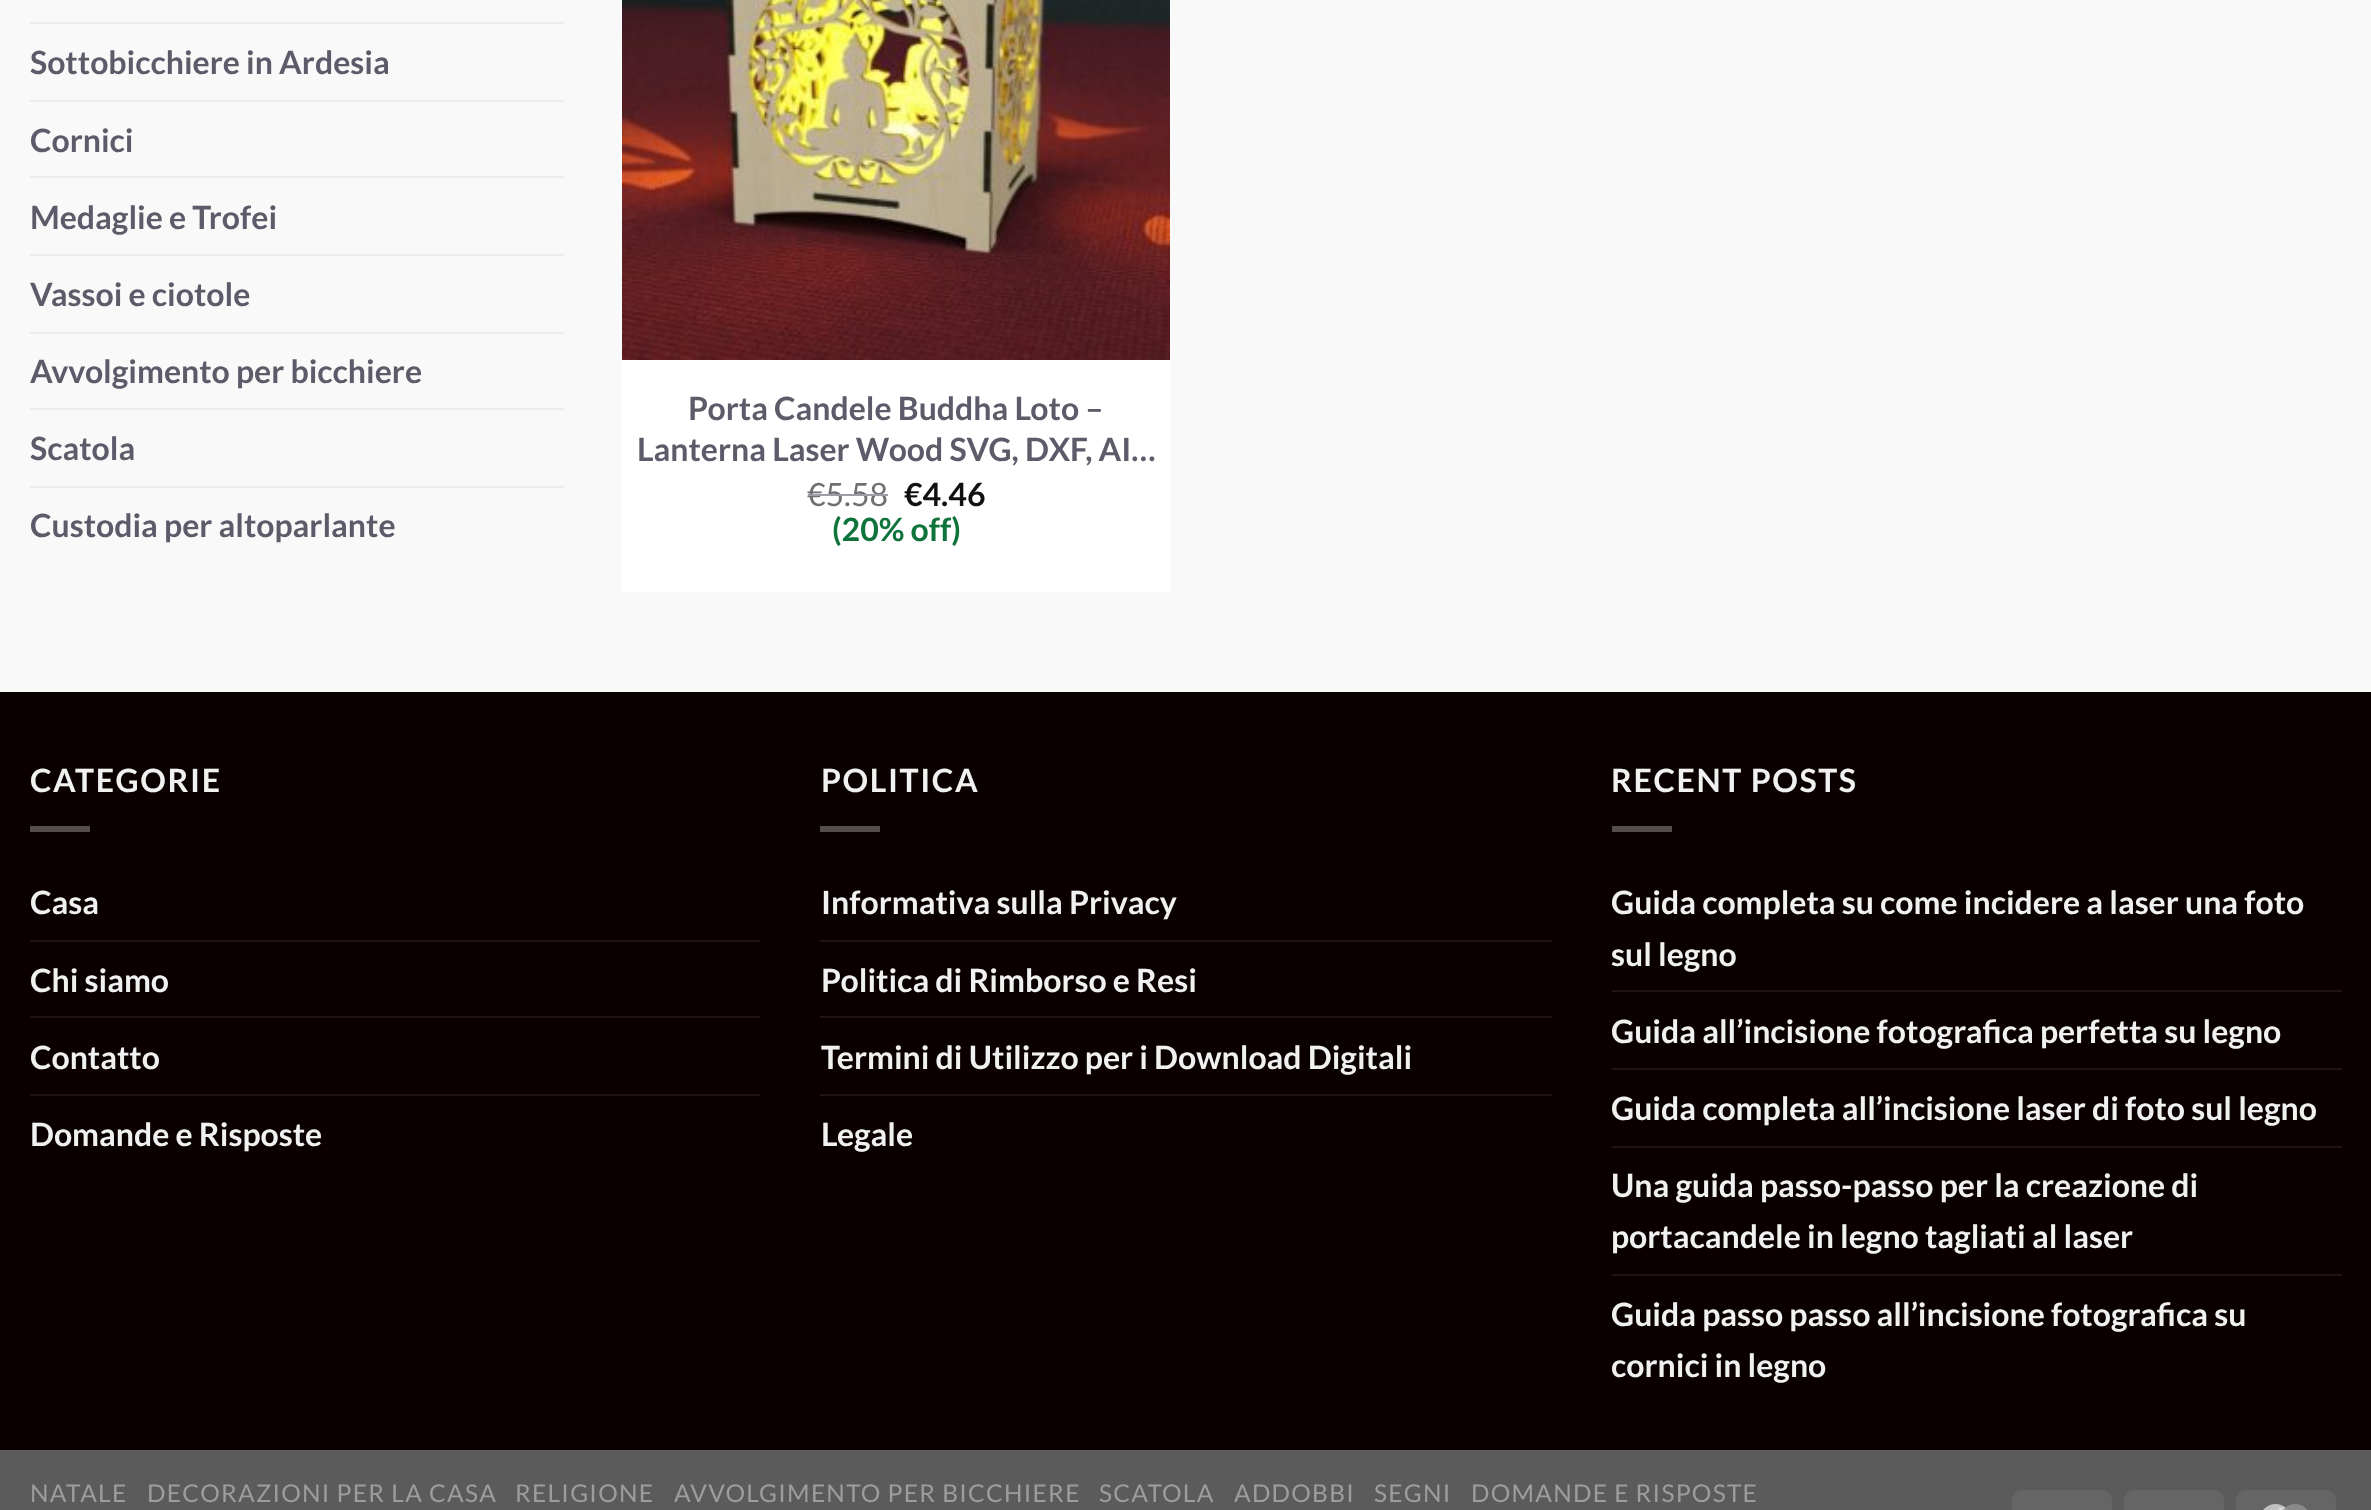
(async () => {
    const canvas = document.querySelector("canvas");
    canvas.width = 2371;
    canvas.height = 1510;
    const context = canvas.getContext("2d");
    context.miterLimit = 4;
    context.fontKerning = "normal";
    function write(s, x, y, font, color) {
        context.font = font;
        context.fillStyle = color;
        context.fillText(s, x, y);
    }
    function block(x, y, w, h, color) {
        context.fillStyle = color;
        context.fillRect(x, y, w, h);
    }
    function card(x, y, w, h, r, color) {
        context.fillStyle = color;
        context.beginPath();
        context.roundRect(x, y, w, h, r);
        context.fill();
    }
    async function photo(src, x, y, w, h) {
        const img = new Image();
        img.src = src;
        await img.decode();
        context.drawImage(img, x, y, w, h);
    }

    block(0, 0, 2371, 1510, "rgb(249, 249, 249)");
    block(30, 22, 534, 2, "rgb(236, 236, 236)");
    write("Sottobicchiere in Ardesia", 30, 74, "bold 32px Lato", "rgb(92, 91, 105)");
    block(30, 100, 534, 2, "rgb(236, 236, 236)");
    write("Cornici", 30, 152, "bold 32px Lato", "rgb(92, 91, 105)");
    block(30, 176, 534, 2, "rgb(236, 236, 236)");
    write("Medaglie e Trofei", 30, 229, "bold 32px Lato", "rgb(92, 91, 105)");
    block(30, 254, 534, 2, "rgb(236, 236, 236)");
    write("Vassoi e ciotole", 30, 306, "bold 32px Lato", "rgb(92, 91, 105)");
    block(30, 332, 534, 2, "rgb(236, 236, 236)");
    write("Avvolgimento per bicchiere", 30, 383, "bold 32px Lato", "rgb(92, 91, 105)");
    block(30, 408, 534, 2, "rgb(236, 236, 236)");
    write("Scatola", 30, 460, "bold 32px Lato", "rgb(92, 91, 105)");
    block(30, 486, 534, 2, "rgb(236, 236, 236)");
    write("Custodia per altoparlante", 30, 537, "bold 32px Lato", "rgb(92, 91, 105)");
    block(622, 360, 548, 232, "rgb(255, 255, 255)");
    await photo("media/1.png", 622, 0, 548, 360);
    write("Porta Candele Buddha Loto –", 688, 420, "bold 32px Lato", "rgb(92, 91, 105)");
    write("Lanterna Laser Wood SVG, DXF, AI…", 637, 461, "bold 32px Lato", "rgb(92, 91, 105)");
    write("€5.58", 807, 506, "32px Lato", "rgb(112, 112, 112)");
    block(808, 494, 80, 2, "rgb(157, 157, 165)");
    write("€4.46", 904, 506, "bold 32px Lato", "rgb(17, 17, 17)");
    write("(20% off)", 832, 541, "bold 32px Lato", "rgb(15, 116, 59)");
    block(0, 692, 2371, 758, "rgb(10, 0, 0)");
    context.letterSpacing = "1.6px";
    write("CATEGORIE", 30, 792, "bold 32px Lato", "rgb(241, 241, 241)");
    block(30, 826, 60, 6, "rgb(84, 77, 77)");
    context.letterSpacing = "0px";
    write("Casa", 30, 914, "bold 32px Lato", "rgb(241, 241, 241)");
    block(30, 940, 730, 2, "rgb(30, 20, 20)");
    write("Chi siamo", 30, 992, "bold 32px Lato", "rgb(241, 241, 241)");
    block(30, 1016, 730, 2, "rgb(30, 20, 20)");
    write("Contatto", 30, 1069, "bold 32px Lato", "rgb(241, 241, 241)");
    block(30, 1094, 730, 2, "rgb(30, 20, 20)");
    write("Domande e Risposte", 30, 1146, "bold 32px Lato", "rgb(241, 241, 241)");
    context.letterSpacing = "1.6px";
    write("POLITICA", 821, 792, "bold 32px Lato", "rgb(241, 241, 241)");
    block(820, 826, 60, 6, "rgb(84, 77, 77)");
    context.letterSpacing = "0px";
    write("Informativa sulla Privacy", 821, 914, "bold 32px Lato", "rgb(241, 241, 241)");
    block(820, 940, 732, 2, "rgb(30, 20, 20)");
    write("Politica di Rimborso e Resi", 821, 992, "bold 32px Lato", "rgb(241, 241, 241)");
    block(820, 1016, 732, 2, "rgb(30, 20, 20)");
    write("Termini di Utilizzo per i Download Digitali", 821, 1069, "bold 32px Lato", "rgb(241, 241, 241)");
    block(820, 1094, 732, 2, "rgb(30, 20, 20)");
    write("Legale", 821, 1146, "bold 32px Lato", "rgb(241, 241, 241)");
    context.letterSpacing = "1.6px";
    write("RECENT POSTS", 1611, 792, "bold 32px Lato", "rgb(241, 241, 241)");
    block(1612, 826, 60, 6, "rgb(84, 77, 77)");
    context.letterSpacing = "0px";
    write("Guida completa su come incidere a laser una foto", 1611, 914, "bold 32px Lato", "rgb(241, 241, 241)");
    write("sul legno", 1611, 966, "bold 32px Lato", "rgb(241, 241, 241)");
    block(1612, 990, 730, 2, "rgb(30, 20, 20)");
    write("Guida all’incisione fotografica perfetta su legno", 1611, 1043, "bold 32px Lato", "rgb(241, 241, 241)");
    block(1612, 1068, 730, 2, "rgb(30, 20, 20)");
    write("Guida completa all’incisione laser di foto sul legno", 1611, 1120, "bold 32px Lato", "rgb(241, 241, 241)");
    block(1612, 1146, 730, 2, "rgb(30, 20, 20)");
    write("Una guida passo-passo per la creazione di", 1611, 1197, "bold 32px Lato", "rgb(241, 241, 241)");
    write("portacandele in legno tagliati al laser", 1611, 1248, "bold 32px Lato", "rgb(241, 241, 241)");
    block(1612, 1274, 730, 2, "rgb(30, 20, 20)");
    write("Guida passo passo all’incisione fotografica su", 1611, 1326, "bold 32px Lato", "rgb(241, 241, 241)");
    write("cornici in legno", 1611, 1377, "bold 32px Lato", "rgb(241, 241, 241)");
    block(0, 1450, 2371, 60, "rgb(91, 91, 91)");
    context.letterSpacing = "1.25px";
    write("NATALE", 30, 1502, "24.5px Lato", "rgb(157, 157, 157)");
    write("DECORAZIONI PER LA CASA", 147, 1502, "24.5px Lato", "rgb(157, 157, 157)");
    write("RELIGIONE", 515, 1502, "24.5px Lato", "rgb(157, 157, 157)");
    write("AVVOLGIMENTO PER BICCHIERE", 674, 1502, "24.5px Lato", "rgb(157, 157, 157)");
    write("SCATOLA", 1099, 1502, "24.5px Lato", "rgb(157, 157, 157)");
    write("ADDOBBI", 1234, 1502, "24.5px Lato", "rgb(157, 157, 157)");
    write("SEGNI", 1374, 1502, "24.5px Lato", "rgb(157, 157, 157)");
    write("DOMANDE E RISPOSTE", 1471, 1502, "24.5px Lato", "rgb(157, 157, 157)");
    card(2012, 1490, 100, 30, 10, "rgb(101, 101, 101)");
    card(2124, 1490, 100, 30, 10, "rgb(101, 101, 101)");
    card(2236, 1490, 100, 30, 10, "rgb(101, 101, 101)");
    await photo("media/2.png", 2263, 1504, 45, 6);
})();
